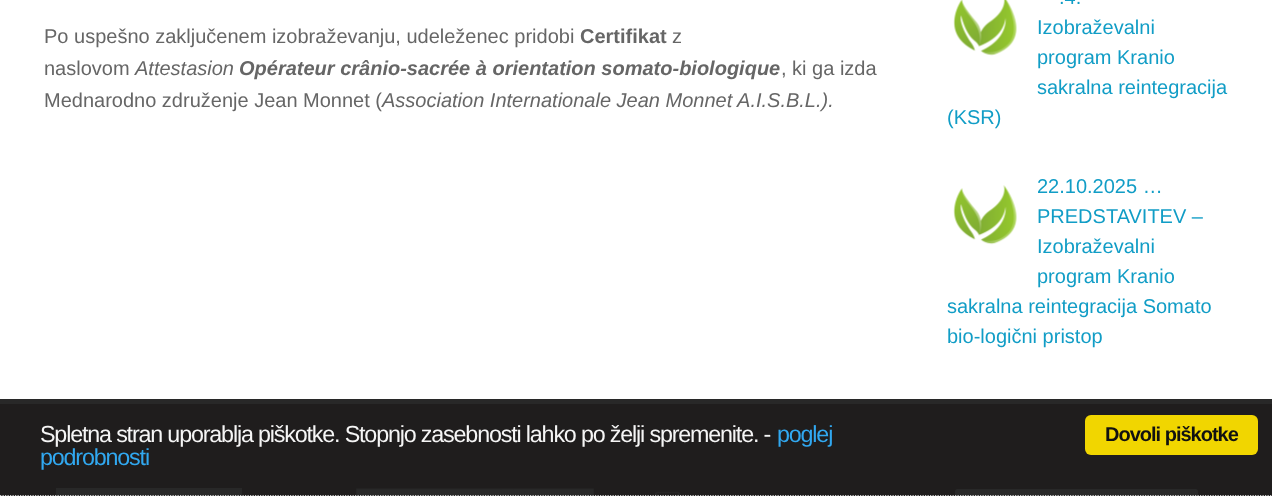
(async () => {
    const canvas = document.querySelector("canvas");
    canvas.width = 1272;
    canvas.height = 496;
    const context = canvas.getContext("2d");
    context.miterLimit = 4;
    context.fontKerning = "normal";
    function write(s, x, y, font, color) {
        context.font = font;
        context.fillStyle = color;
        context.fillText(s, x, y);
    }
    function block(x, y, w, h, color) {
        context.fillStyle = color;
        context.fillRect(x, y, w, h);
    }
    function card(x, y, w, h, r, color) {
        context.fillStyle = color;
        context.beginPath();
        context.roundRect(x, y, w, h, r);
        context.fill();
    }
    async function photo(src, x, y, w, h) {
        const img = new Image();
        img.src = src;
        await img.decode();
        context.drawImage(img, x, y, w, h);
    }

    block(0, 0, 1272, 496, "rgb(31, 29, 29)");
    block(0, 0, 1272, 399, "rgb(255, 255, 255)");
    block(0, 399, 1272, 5, "rgb(40, 40, 40)");
    write("Po uspešno zaključenem izobraževanju, udeleženec pridobi", 44, 43, "20px Liberation Sans", "rgb(102, 102, 102)");
    write("Certifikat", 580, 43, "bold 20px Liberation Sans", "rgb(102, 102, 102)");
    write("z", 672, 43, "20px Liberation Sans", "rgb(102, 102, 102)");
    write("naslovom", 44, 75, "20px Liberation Sans", "rgb(102, 102, 102)");
    write("Attestasion", 135, 75, "italic 20px Liberation Sans", "rgb(102, 102, 102)");
    write("Opérateur crânio-sacrée à orientation somato-biologique", 239, 75, "italic bold 20px Liberation Sans", "rgb(102, 102, 102)");
    write(", ki ga izda", 781, 75, "20px Liberation Sans", "rgb(102, 102, 102)");
    write("Mednarodno združenje Jean Monnet (", 44, 107, "20px Liberation Sans", "rgb(102, 102, 102)");
    write("Association Internationale Jean Monnet A.I.S.B.L.).", 382, 107, "italic 20px Liberation Sans", "rgb(102, 102, 102)");
    await photo("media/1.png", 953, 0, 64, 56);
    write(".4.", 1059, 4, "20px Liberation Sans", "rgb(17, 157, 198)");
    write("Izobraževalni", 1037, 34, "20px Liberation Sans", "rgb(17, 157, 198)");
    write("program Kranio", 1037, 64, "20px Liberation Sans", "rgb(17, 157, 198)");
    write("sakralna reintegracija", 1037, 94, "20px Liberation Sans", "rgb(17, 157, 198)");
    write("(KSR)", 947, 124, "20px Liberation Sans", "rgb(17, 157, 198)");
    await photo("media/2.png", 953, 185, 64, 60);
    write("22.10.2025 …", 1037, 193, "20px Liberation Sans", "rgb(17, 157, 198)");
    write("PREDSTAVITEV –", 1037, 223, "20px Liberation Sans", "rgb(17, 157, 198)");
    write("Izobraževalni", 1037, 253, "20px Liberation Sans", "rgb(17, 157, 198)");
    write("program Kranio", 1037, 283, "20px Liberation Sans", "rgb(17, 157, 198)");
    write("sakralna reintegracija Somato", 947, 313, "20px Liberation Sans", "rgb(17, 157, 198)");
    write("bio-logični pristop", 947, 343, "20px Liberation Sans", "rgb(17, 157, 198)");
    block(56, 488, 186, 8, "rgb(40, 40, 40)");
    await photo("media/3.png", 356, 488, 238, 8);
    await photo("media/4.png", 655, 491, 25, 5);
    card(955, 489, 243, 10, 2.5, "rgb(40, 40, 40)");
    context.beginPath();
    context.moveTo(0, 495.5);
    context.lineTo(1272.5, 495.5);
    context.strokeStyle = "rgb(204, 204, 204)";
    context.lineWidth = 1.2;
    context.setLineDash([1.25, 1.25]);
    context.stroke();
    context.letterSpacing = "-1.17px";
    write("Spletna stran uporablja piškotke. Stopnjo zasebnosti lahko po želji spremenite. -", 40, 442, "23.3px Liberation Sans", "rgb(245, 245, 245)");
    write("poglej", 777, 442, "23.3px Liberation Sans", "rgb(49, 168, 240)");
    write("podrobnosti", 40, 465, "23.3px Liberation Sans", "rgb(49, 168, 240)");
    card(1085, 415, 173, 40, 6, "rgb(241, 214, 0)");
    context.letterSpacing = "-1px";
    write("Dovoli piškotke", 1105, 441, "bold 20px Liberation Sans", "rgb(17, 17, 17)");
})();
